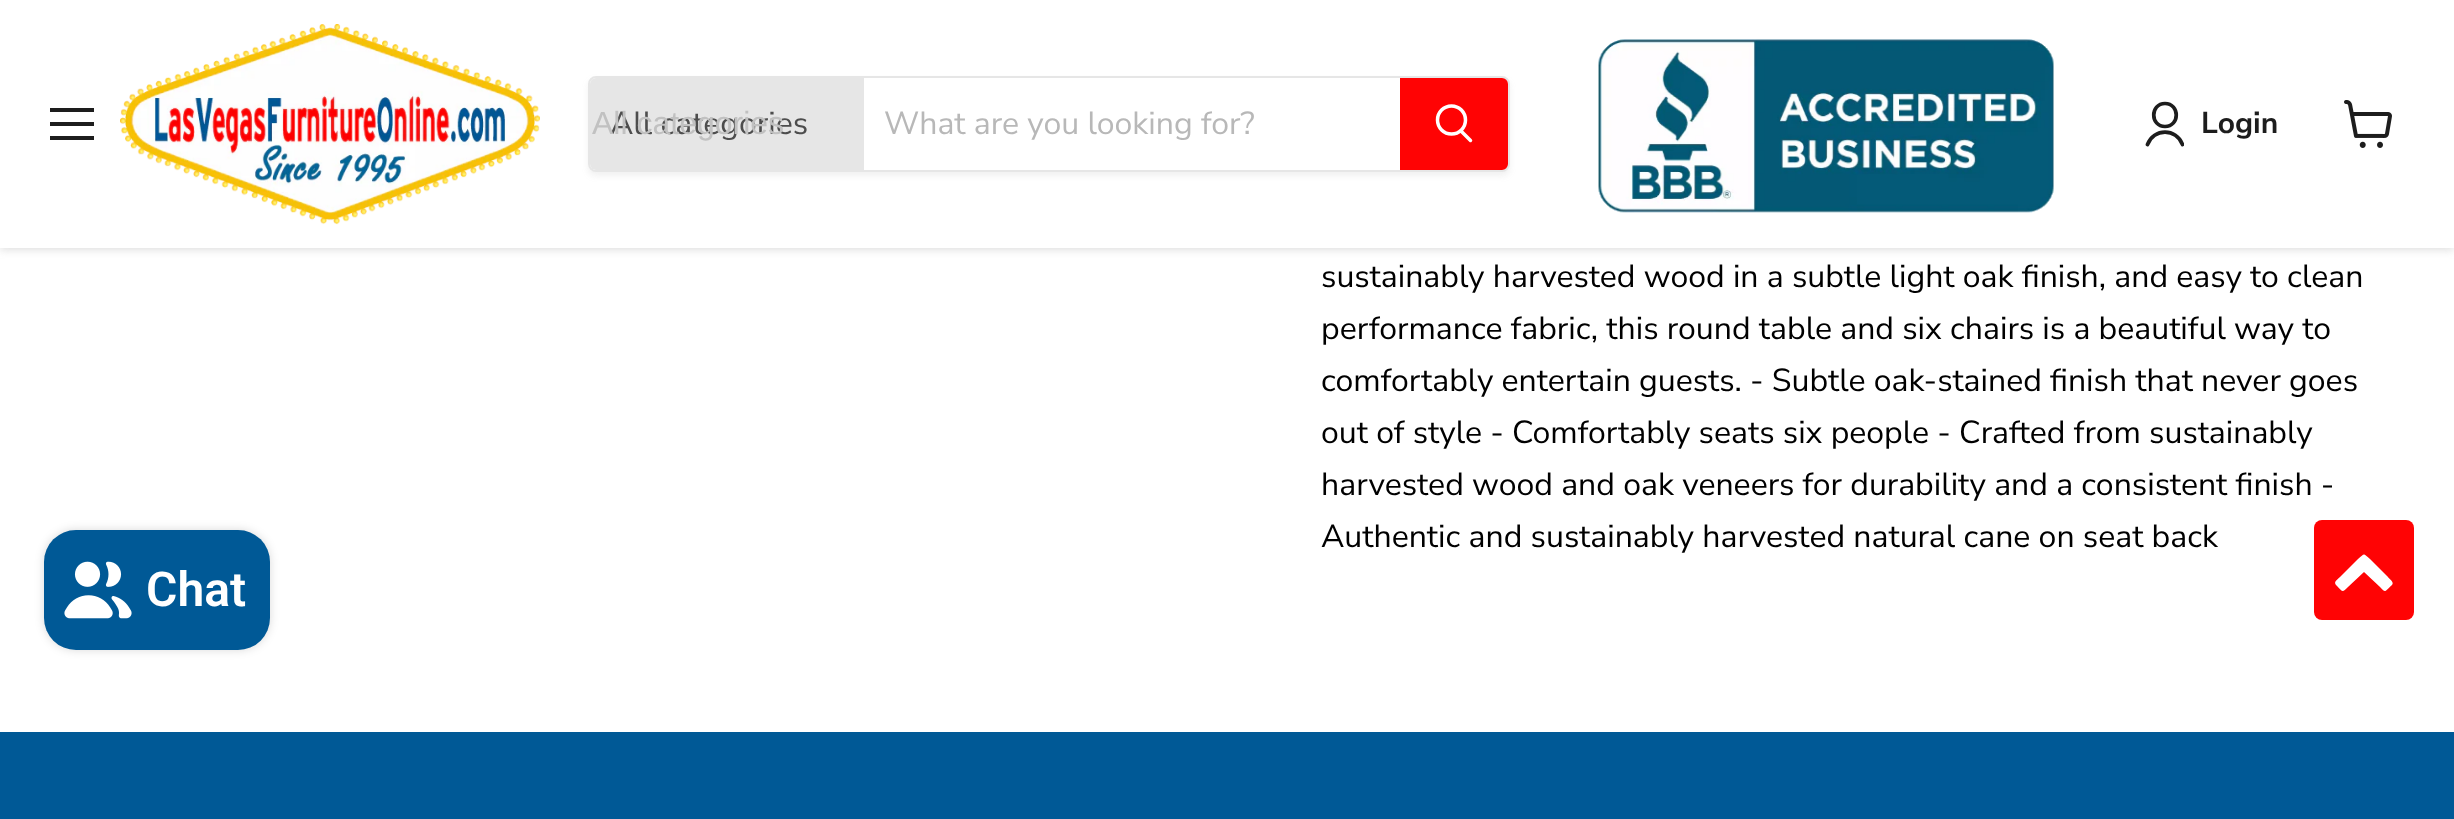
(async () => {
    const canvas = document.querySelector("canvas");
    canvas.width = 2454;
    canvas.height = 819;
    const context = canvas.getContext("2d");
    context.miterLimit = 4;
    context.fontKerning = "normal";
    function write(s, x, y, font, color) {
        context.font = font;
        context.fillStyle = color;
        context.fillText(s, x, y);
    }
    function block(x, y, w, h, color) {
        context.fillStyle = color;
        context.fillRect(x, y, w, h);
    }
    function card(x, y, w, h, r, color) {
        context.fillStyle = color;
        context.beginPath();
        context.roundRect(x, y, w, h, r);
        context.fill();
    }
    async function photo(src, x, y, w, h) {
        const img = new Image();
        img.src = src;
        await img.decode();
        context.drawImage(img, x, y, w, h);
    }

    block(0, 0, 2454, 819, "rgb(255, 255, 255)");
    context.fillStyle = "rgba(128, 128, 128, 0.25)";
    context.filter = "blur(4px)";
    context.beginPath();
    context.rect(0, 2, 2454, 248);
    context.fill();
    context.filter = "none";
    block(0, 0, 2454, 248, "rgb(255, 255, 255)");
    block(50, 108, 44, 4, "rgb(29, 29, 29)");
    block(50, 122, 44, 4, "rgb(29, 29, 29)");
    block(50, 136, 44, 4, "rgb(29, 29, 29)");
    await photo("media/1.png", 120, 24, 420, 201);
    context.save();
    context.beginPath();
    context.moveTo(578, 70);
    context.lineTo(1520, 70);
    context.lineTo(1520, 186);
    context.lineTo(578, 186);
    context.closePath();
    context.moveTo(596, 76);
    context.lineTo(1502, 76);
    context.bezierCurveTo(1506.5, 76, 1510, 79.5, 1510, 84);
    context.lineTo(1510, 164);
    context.bezierCurveTo(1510, 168.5, 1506.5, 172, 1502, 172);
    context.lineTo(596, 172);
    context.bezierCurveTo(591.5, 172, 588, 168.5, 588, 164);
    context.lineTo(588, 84);
    context.bezierCurveTo(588, 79.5, 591.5, 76, 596, 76);
    context.closePath();
    context.clip("evenodd");
    context.fillStyle = "rgba(128, 128, 128, 0.11)";
    context.filter = "blur(3px)";
    context.beginPath();
    context.roundRect(588, 80, 922, 96, 8);
    context.fill();
    context.filter = "none";
    context.restore();
    context.beginPath();
    context.roundRect(589, 77, 920, 94, 7);
    context.strokeStyle = "rgba(128, 128, 128, 0.2)";
    context.lineWidth = 2;
    context.stroke();
    context.fillStyle = "rgb(230, 230, 230)";
    context.beginPath();
    context.roundRect(590, 78, 274, 92, [6, 0, 0, 6]);
    context.fill();
    write("All categories", 610, 134, "32px Nunito Sans", "rgb(77, 77, 77)");
    write("All categories", 592, 134, "32px Liberation Sans", "rgb(193, 193, 193)");
    write("What are you looking for?", 884, 134, "32px Nunito Sans", "rgb(184, 184, 184)");
    context.fillStyle = "rgb(255, 3, 4)";
    context.beginPath();
    context.roundRect(1401, 79, 106, 90, [0, 5, 5, 0]);
    context.fill();
    context.strokeStyle = "rgb(255, 3, 4)";
    context.stroke();
    context.beginPath();
    context.moveTo(1470.5, 140.5);
    context.lineTo(1461, 131);
    context.strokeStyle = "rgb(255, 255, 255)";
    context.lineWidth = 3.5;
    context.lineCap = "round";
    context.stroke();
    context.beginPath();
    context.arc(1451.5, 120, 14, 0, Math.PI * 2);
    context.stroke();
    await photo("media/2.png", 1598, 39, 456, 174);
    context.beginPath();
    context.moveTo(2165, 126.5);
    context.bezierCurveTo(2180, 126.5, 2180, 103.5, 2165, 103.5);
    context.bezierCurveTo(2150, 103.5, 2150, 126.5, 2165, 126.5);
    context.closePath();
    context.strokeStyle = "rgb(29, 29, 29)";
    context.lineWidth = 3.7;
    context.lineJoin = "round";
    context.stroke();
    context.save();
    context.beginPath();
    context.rect(2144, 100, 40, 48);
    context.clip();
    context.beginPath();
    context.moveTo(2182.5, 144.5);
    context.bezierCurveTo(2176.5, 128, 2153.5, 128, 2147.5, 144.5);
    context.stroke();
    context.restore();
    write("Login", 2201, 133, "bold 30px Nunito Sans", "rgb(29, 29, 29)");
    await photo("media/3.png", 2344, 100, 48, 48);
    write("sustainably harvested wood in a subtle light oak finish, and easy to clean", 1321, 287, "32px Nunito Sans", "rgb(0, 0, 0)");
    write("performance fabric, this round table and six chairs is a beautiful way to", 1321, 339, "32px Nunito Sans", "rgb(0, 0, 0)");
    write("comfortably entertain guests. - Subtle oak-stained finish that never goes", 1321, 391, "32px Nunito Sans", "rgb(0, 0, 0)");
    write("out of style - Comfortably seats six people - Crafted from sustainably", 1321, 443, "32px Nunito Sans", "rgb(0, 0, 0)");
    write("harvested wood and oak veneers for durability and a consistent finish -", 1321, 495, "32px Nunito Sans", "rgb(0, 0, 0)");
    write("Authentic and sustainably harvested natural cane on seat back", 1321, 547, "32px Nunito Sans", "rgb(0, 0, 0)");
    context.fillStyle = "rgba(0, 0, 0, 0.15)";
    context.filter = "blur(5px)";
    context.beginPath();
    context.roundRect(44, 530, 226, 120, 32);
    context.fill();
    context.filter = "none";
    card(44, 530, 226, 120, 32, "rgb(0, 89, 150)");
    await photo("media/4.png", 64, 561, 68, 58);
    write("Chat", 146, 606, "600 48px Roboto", "rgb(255, 255, 255)");
    card(2314, 520, 100, 100, 8, "rgb(255, 3, 4)");
    context.fillStyle = "rgb(255, 255, 255)";
    context.beginPath();
    context.moveTo(2392, 585);
    context.bezierCurveTo(2385, 591, 2386, 594, 2380, 587);
    context.lineTo(2364, 572);
    context.lineTo(2348, 587);
    context.bezierCurveTo(2342, 593, 2343, 592, 2337, 586);
    context.bezierCurveTo(2333, 582, 2336, 581, 2340, 577);
    context.lineTo(2358, 559);
    context.bezierCurveTo(2365, 553, 2363, 553, 2370, 559);
    context.lineTo(2388, 577);
    context.bezierCurveTo(2388, 578, 2395, 582, 2392, 585);
    context.closePath();
    context.fill();
    block(0, 732, 2454, 87, "rgb(0, 89, 150)");
})();
